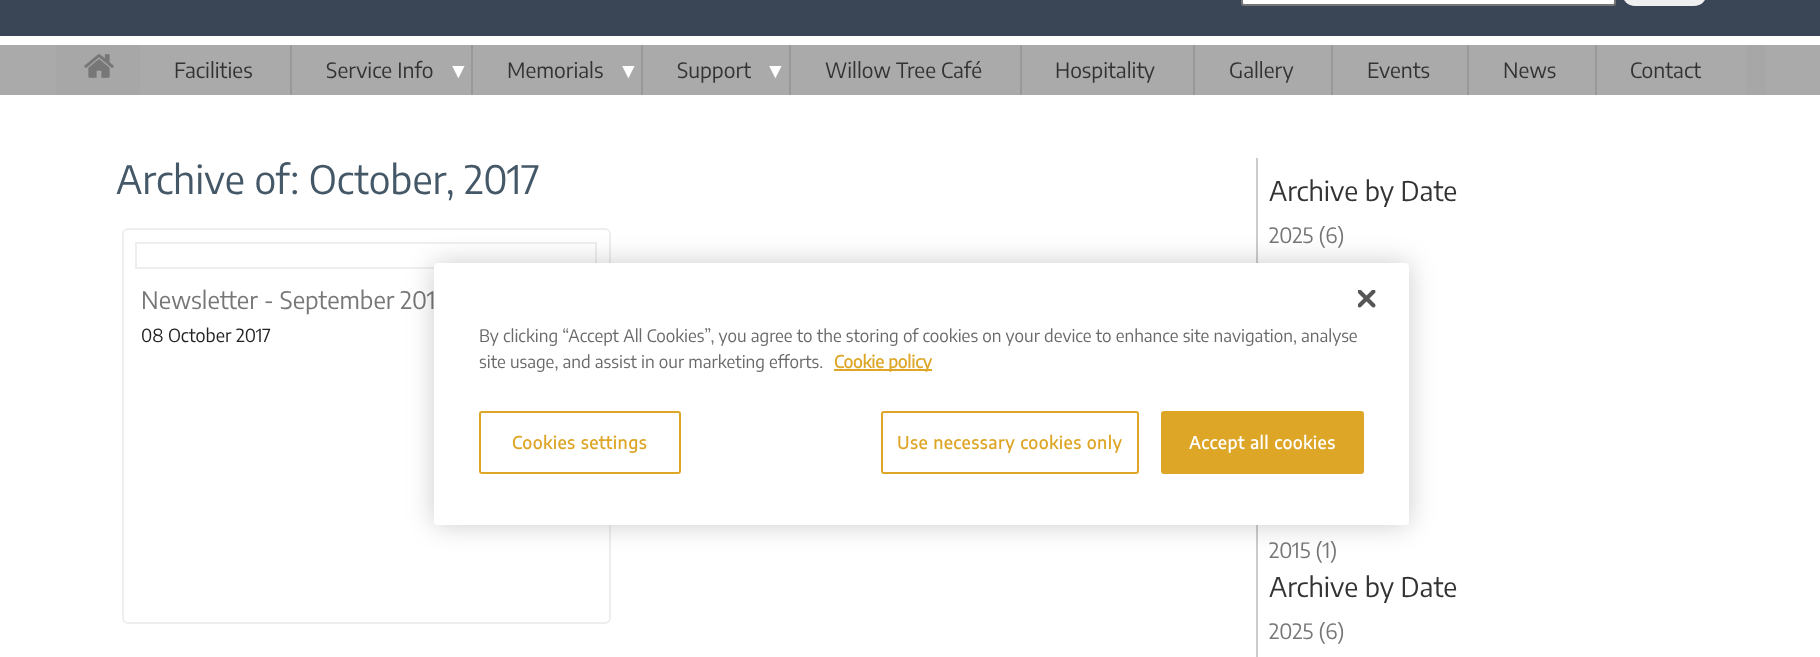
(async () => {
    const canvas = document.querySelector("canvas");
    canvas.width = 1820;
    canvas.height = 657;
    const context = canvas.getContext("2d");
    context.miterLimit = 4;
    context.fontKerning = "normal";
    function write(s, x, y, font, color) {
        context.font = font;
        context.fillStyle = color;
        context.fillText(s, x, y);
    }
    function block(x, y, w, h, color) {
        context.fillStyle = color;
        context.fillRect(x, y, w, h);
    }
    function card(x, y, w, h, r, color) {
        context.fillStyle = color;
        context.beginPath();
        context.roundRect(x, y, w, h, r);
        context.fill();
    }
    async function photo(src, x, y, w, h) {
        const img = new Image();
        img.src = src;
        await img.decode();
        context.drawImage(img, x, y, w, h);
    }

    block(0, 0, 1820, 657, "rgb(255, 255, 255)");
    block(0, 0, 1820, 36, "rgb(58, 69, 86)");
    context.fillStyle = "rgb(255, 255, 255)";
    context.beginPath();
    context.roundRect(1242, -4, 373, 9, 2);
    context.fill();
    context.strokeStyle = "rgb(118, 118, 118)";
    context.lineWidth = 2;
    context.stroke();
    card(1622, -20, 85, 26, 20, "rgb(239, 239, 239)");
    block(0, 45, 1820, 50, "rgb(170, 170, 170)");
    block(56, 45, 1710, 50, "rgb(167, 167, 167)");
    await photo("media/1.png", 84, 54, 30, 24);
    block(140, 45, 150, 50, "rgb(170, 170, 170)");
    write("Facilities", 174, 78, "100 21px Encode Sans Condensed", "rgb(51, 51, 51)");
    block(292, 45, 179, 50, "rgb(170, 170, 170)");
    block(290, 45, 2, 50, "rgb(153, 153, 153)");
    write("Service Info", 326, 78, "100 21px Encode Sans Condensed", "rgb(51, 51, 51)");
    write("▼", 448, 78, "italic 21px Liberation Sans", "rgb(255, 255, 255)");
    block(473, 45, 168, 50, "rgb(170, 170, 170)");
    block(471, 45, 2, 50, "rgb(153, 153, 153)");
    write("Memorials", 507, 78, "100 21px Encode Sans Condensed", "rgb(51, 51, 51)");
    write("▼", 618, 78, "italic 21px Liberation Sans", "rgb(255, 255, 255)");
    block(643, 45, 146, 50, "rgb(170, 170, 170)");
    block(641, 45, 2, 50, "rgb(153, 153, 153)");
    write("Support", 677, 78, "100 21px Encode Sans Condensed", "rgb(51, 51, 51)");
    write("▼", 765, 78, "italic 21px Liberation Sans", "rgb(255, 255, 255)");
    block(791, 45, 229, 50, "rgb(170, 170, 170)");
    block(789, 45, 2, 50, "rgb(153, 153, 153)");
    write("Willow Tree Café", 825, 78, "100 21px Encode Sans Condensed", "rgb(51, 51, 51)");
    block(1022, 45, 171, 50, "rgb(170, 170, 170)");
    block(1020, 45, 2, 50, "rgb(153, 153, 153)");
    write("Hospitality", 1055, 78, "100 21px Encode Sans Condensed", "rgb(51, 51, 51)");
    block(1195, 45, 136, 50, "rgb(170, 170, 170)");
    block(1193, 45, 2, 50, "rgb(153, 153, 153)");
    write("Gallery", 1229, 78, "100 21px Encode Sans Condensed", "rgb(51, 51, 51)");
    block(1333, 45, 134, 50, "rgb(170, 170, 170)");
    block(1331, 45, 2, 50, "rgb(153, 153, 153)");
    write("Events", 1367, 78, "100 21px Encode Sans Condensed", "rgb(51, 51, 51)");
    block(1469, 45, 126, 50, "rgb(170, 170, 170)");
    block(1467, 45, 2, 50, "rgb(153, 153, 153)");
    write("News", 1503, 78, "100 21px Encode Sans Condensed", "rgb(51, 51, 51)");
    block(1597, 45, 149, 50, "rgb(170, 170, 170)");
    block(1595, 45, 2, 50, "rgb(153, 153, 153)");
    write("Contact", 1630, 78, "100 21px Encode Sans Condensed", "rgb(51, 51, 51)");
    write("Archive of: October, 2017", 116, 194, "100 39px Encode Sans Condensed", "rgb(68, 88, 104)");
    context.beginPath();
    context.roundRect(123, 229, 487, 394, 5);
    context.strokeStyle = "rgb(238, 238, 238)";
    context.stroke();
    context.strokeRect(136, 243, 460, 25);
    write("Newsletter - September 201", 141, 309, "100 24px Encode Sans Condensed", "rgb(119, 119, 119)");
    write("08 October 2017", 141, 342, "100 18px Encode Sans Condensed", "rgb(34, 34, 34)");
    block(1256, 158, 2, 499, "rgb(204, 204, 204)");
    write("Archive by Date", 1269, 201, "100 27px Encode Sans Condensed", "rgb(51, 51, 51)");
    write("2025 (6)", 1269, 243, "100 21px Encode Sans Condensed", "rgb(119, 119, 119)");
    write("2015 (1)", 1269, 558, "100 21px Encode Sans Condensed", "rgb(119, 119, 119)");
    write("Archive by Date", 1269, 597, "100 27px Encode Sans Condensed", "rgb(51, 51, 51)");
    write("2025 (6)", 1269, 639, "100 21px Encode Sans Condensed", "rgb(119, 119, 119)");
    context.fillStyle = "rgba(0, 0, 0, 0.2)";
    context.filter = "blur(13.5px)";
    context.beginPath();
    context.roundRect(434, 263, 975, 262, 4);
    context.fill();
    context.filter = "none";
    card(434, 263, 975, 262, 4, "rgb(255, 255, 255)");
    await photo("media/2.png", 1358, 290, 18, 18);
    write("By clicking “Accept All Cookies”, you agree to the storing of cookies on your device to enhance site navigation, analyse", 479, 342, "100 17.07px Encode Sans Condensed", "rgb(105, 105, 105)");
    write("site usage, and assist in our marketing efforts.", 479, 368, "100 17.07px Encode Sans Condensed", "rgb(105, 105, 105)");
    block(834, 369, 98, 2, "rgb(221, 166, 39)");
    write("Cookie policy", 834, 368, "bold 17.07px Encode Sans Condensed", "rgb(221, 166, 39)");
    context.beginPath();
    context.roundRect(480, 412, 200, 61, 2);
    context.strokeStyle = "rgb(221, 166, 39)";
    context.stroke();
    context.letterSpacing = "0.85px";
    write("Cookies settings", 512, 449, "bold 17.07px Encode Sans Condensed", "rgb(221, 166, 39)");
    context.beginPath();
    context.roundRect(882, 412, 256, 61, 2);
    context.stroke();
    write("Use necessary cookies only", 897, 449, "bold 17.07px Encode Sans Condensed", "rgb(221, 166, 39)");
    context.beginPath();
    context.roundRect(1162, 412, 201, 61, 2);
    context.fill();
    context.stroke();
    write("Accept all cookies", 1189, 449, "bold 17.07px Encode Sans Condensed", "rgb(255, 255, 255)");
})();
